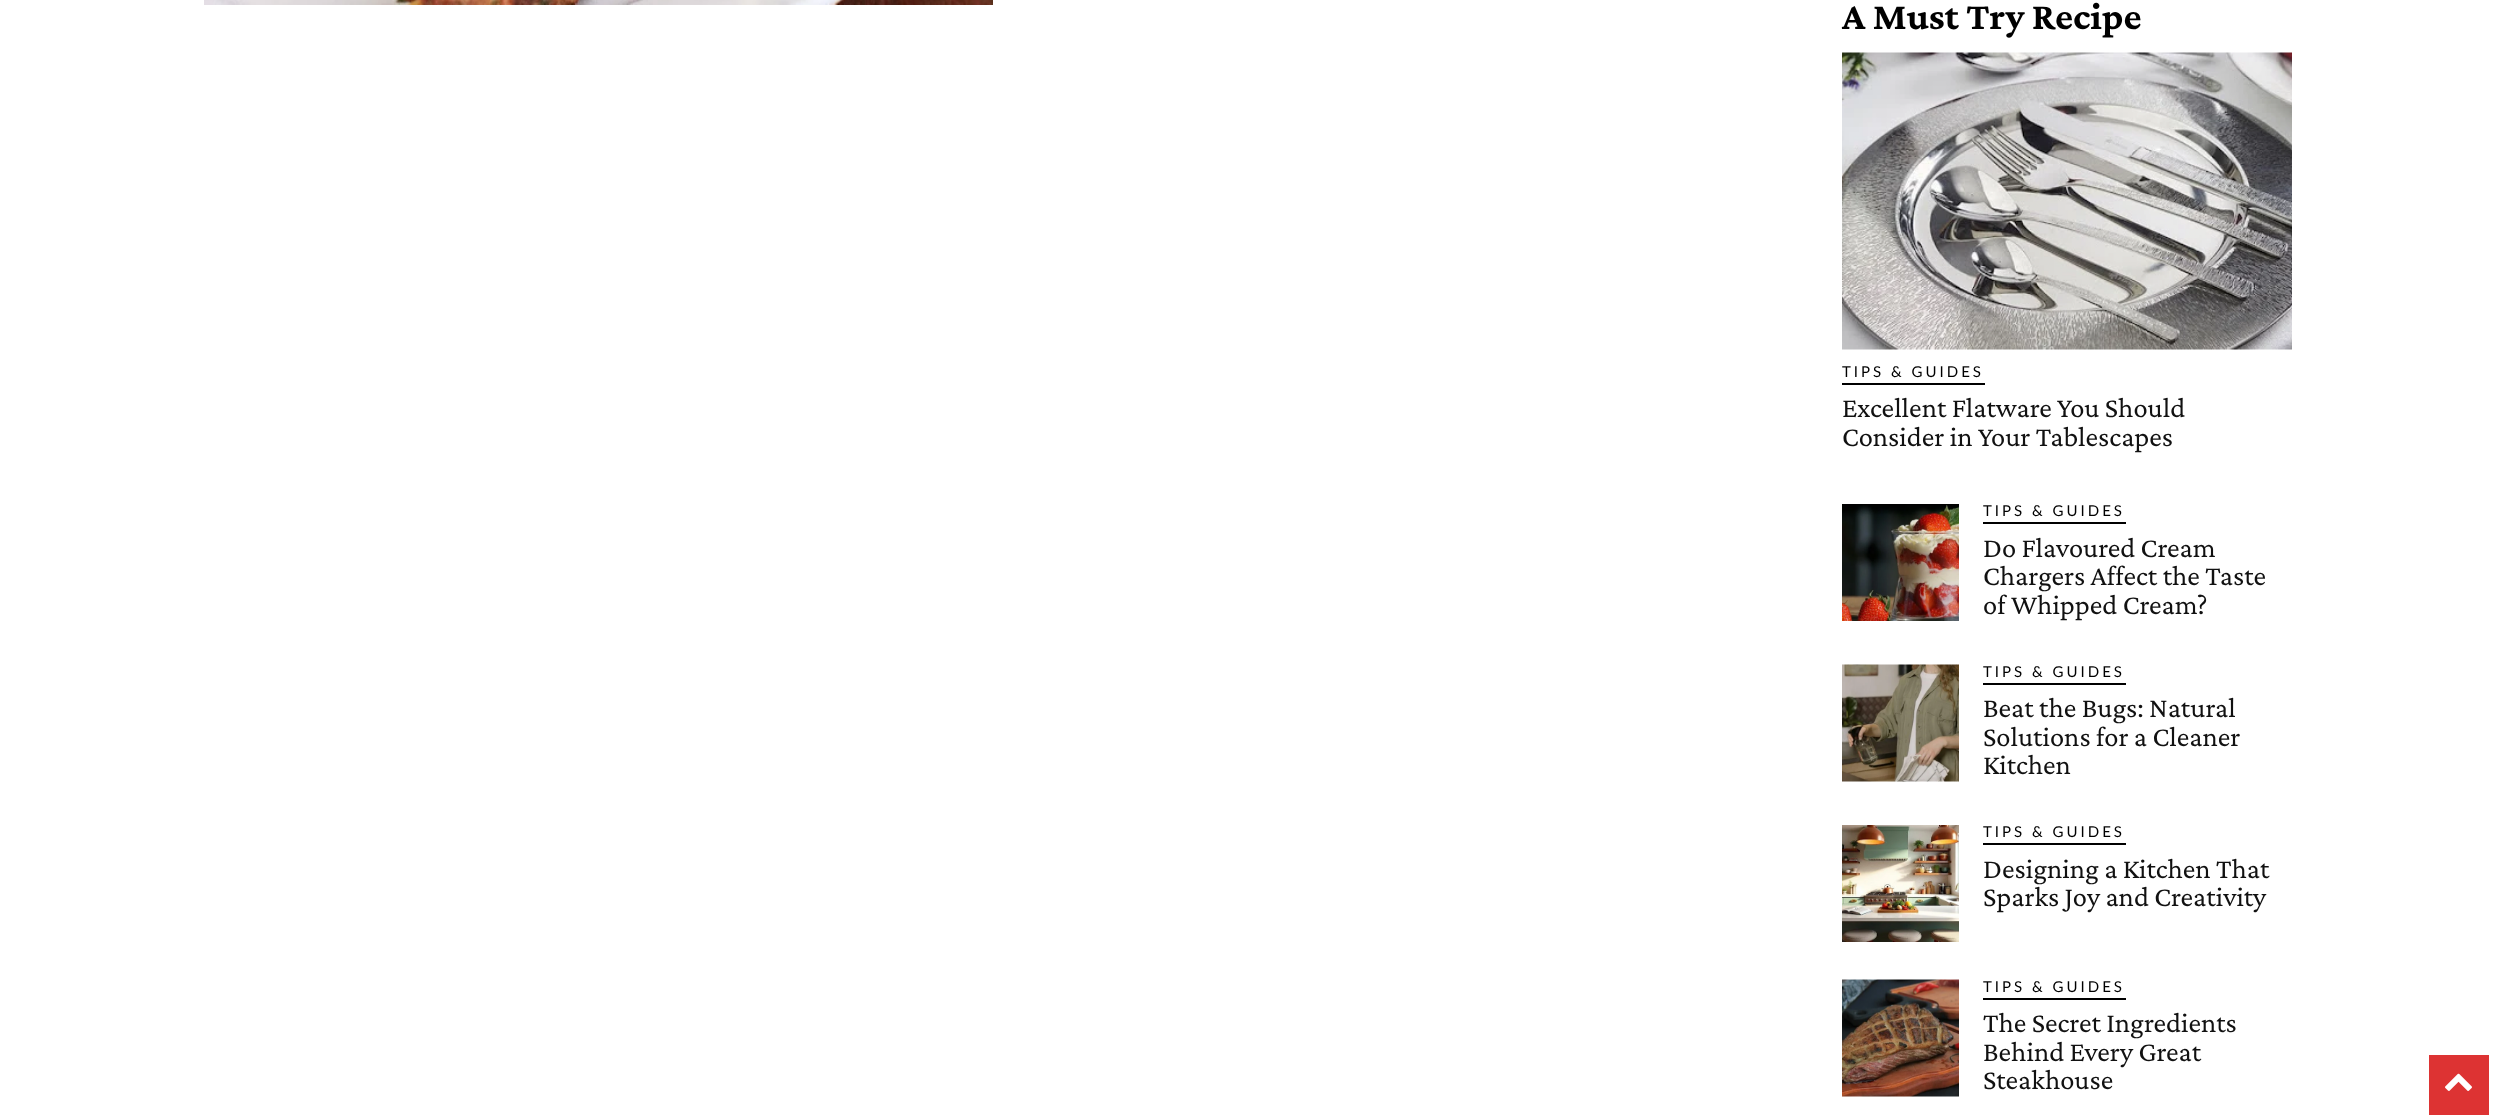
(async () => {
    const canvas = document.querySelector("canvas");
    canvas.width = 2495;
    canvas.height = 1120;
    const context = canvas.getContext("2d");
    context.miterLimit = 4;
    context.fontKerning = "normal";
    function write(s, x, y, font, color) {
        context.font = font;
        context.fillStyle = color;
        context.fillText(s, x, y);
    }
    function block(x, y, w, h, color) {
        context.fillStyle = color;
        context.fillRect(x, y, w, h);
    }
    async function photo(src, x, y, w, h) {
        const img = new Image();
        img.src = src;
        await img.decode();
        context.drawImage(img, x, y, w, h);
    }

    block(0, 0, 2495, 1120, "rgb(255, 255, 255)");
    await photo("media/1.png", 204, 0, 789, 5);
    write("A Must Try Recipe", 1842, 29, "bold 39px Crimson Pro", "rgb(0, 0, 0)");
    await photo("media/2.png", 1842, 52, 450, 298);
    block(1842, 383, 143, 2, "rgb(0, 0, 0)");
    context.letterSpacing = "3px";
    write("TIPS & GUIDES", 1842, 377, "15px Lato", "rgb(0, 0, 0)");
    context.letterSpacing = "0px";
    write("Excellent Flatware You Should", 1842, 417, "28.5px Crimson Pro", "rgb(17, 17, 17)");
    write("Consider in Your Tablescapes", 1842, 446, "28.5px Crimson Pro", "rgb(17, 17, 17)");
    await photo("media/3.png", 1842, 504, 117, 117);
    block(1983, 522, 143, 2, "rgb(0, 0, 0)");
    context.letterSpacing = "3px";
    write("TIPS & GUIDES", 1983, 516, "15px Lato", "rgb(0, 0, 0)");
    context.letterSpacing = "0px";
    write("Do Flavoured Cream", 1983, 557, "28.5px Crimson Pro", "rgb(17, 17, 17)");
    write("Chargers Affect the Taste", 1983, 585, "28.5px Crimson Pro", "rgb(17, 17, 17)");
    write("of Whipped Cream?", 1983, 614, "28.5px Crimson Pro", "rgb(17, 17, 17)");
    await photo("media/4.png", 1842, 664, 117, 118);
    block(1983, 683, 143, 2, "rgb(0, 0, 0)");
    context.letterSpacing = "3px";
    write("TIPS & GUIDES", 1983, 677, "15px Lato", "rgb(0, 0, 0)");
    context.letterSpacing = "0px";
    write("Beat the Bugs: Natural", 1983, 717, "28.5px Crimson Pro", "rgb(17, 17, 17)");
    write("Solutions for a Cleaner", 1983, 746, "28.5px Crimson Pro", "rgb(17, 17, 17)");
    write("Kitchen", 1983, 774, "28.5px Crimson Pro", "rgb(17, 17, 17)");
    await photo("media/5.png", 1842, 825, 117, 117);
    block(1983, 843, 143, 2, "rgb(0, 0, 0)");
    context.letterSpacing = "3px";
    write("TIPS & GUIDES", 1983, 837, "15px Lato", "rgb(0, 0, 0)");
    context.letterSpacing = "0px";
    write("Designing a Kitchen That", 1983, 878, "28.5px Crimson Pro", "rgb(17, 17, 17)");
    write("Sparks Joy and Creativity", 1983, 906, "28.5px Crimson Pro", "rgb(17, 17, 17)");
    await photo("media/6.png", 1842, 979, 117, 118);
    block(1983, 998, 143, 2, "rgb(0, 0, 0)");
    context.letterSpacing = "3px";
    write("TIPS & GUIDES", 1983, 992, "15px Lato", "rgb(0, 0, 0)");
    context.letterSpacing = "0px";
    write("The Secret Ingredients", 1983, 1032, "28.5px Crimson Pro", "rgb(17, 17, 17)");
    write("Behind Every Great", 1983, 1061, "28.5px Crimson Pro", "rgb(17, 17, 17)");
    write("Steakhouse", 1983, 1089, "28.5px Crimson Pro", "rgb(17, 17, 17)");
    block(2429, 1055, 60, 60, "rgb(221, 51, 51)");
    await photo("media/7.png", 2445, 1073, 27, 18);
})();
